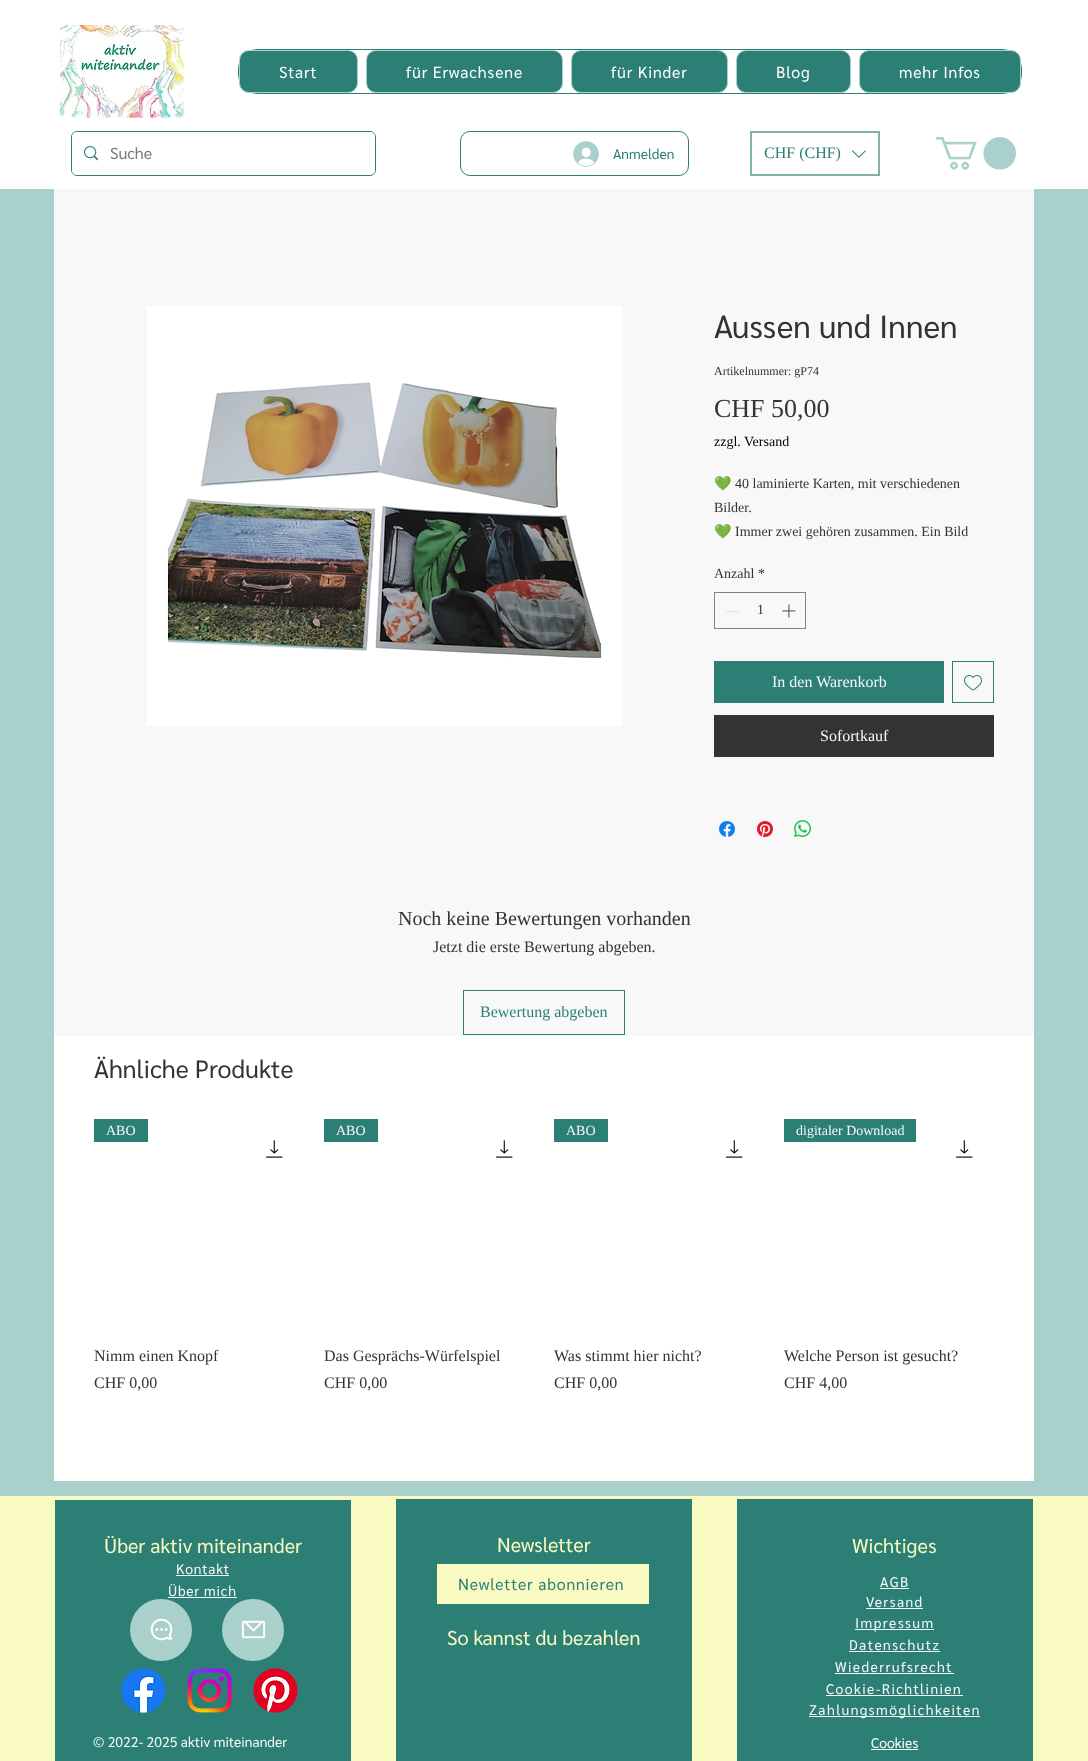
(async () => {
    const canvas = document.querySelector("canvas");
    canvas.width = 1088;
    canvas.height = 1761;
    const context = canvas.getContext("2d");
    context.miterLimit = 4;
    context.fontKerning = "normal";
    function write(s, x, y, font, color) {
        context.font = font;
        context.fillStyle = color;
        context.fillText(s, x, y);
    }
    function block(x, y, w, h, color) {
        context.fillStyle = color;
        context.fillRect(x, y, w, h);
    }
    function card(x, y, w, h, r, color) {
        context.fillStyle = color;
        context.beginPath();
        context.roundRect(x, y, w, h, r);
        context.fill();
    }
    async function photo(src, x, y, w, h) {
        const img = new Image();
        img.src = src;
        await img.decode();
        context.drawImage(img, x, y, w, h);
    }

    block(0, 0, 1088, 1761, "rgb(170, 208, 203)");
    block(0, 0, 1088, 189, "rgb(255, 255, 255)");
    await photo("media/1.png", 60, 25, 124, 93);
    context.beginPath();
    context.roundRect(238.5, 49.5, 783, 44, 19.5);
    context.strokeStyle = "rgb(44, 127, 117)";
    context.stroke();
    context.fillStyle = "rgb(44, 127, 117)";
    context.beginPath();
    context.roundRect(239.5, 50.5, 118, 42, 9.5);
    context.fill();
    context.strokeStyle = "rgb(170, 208, 203)";
    context.stroke();
    context.letterSpacing = "0.8px";
    write("Start", 279, 78, "16px Sarabun", "rgb(255, 255, 255)");
    context.fillStyle = "rgb(44, 127, 117)";
    context.beginPath();
    context.roundRect(366.5, 50.5, 196, 42, 9.5);
    context.fill();
    context.stroke();
    write("für Erwachsene", 406, 78, "16px Sarabun", "rgb(255, 255, 255)");
    context.fillStyle = "rgb(44, 127, 117)";
    context.beginPath();
    context.roundRect(571.5, 50.5, 156, 42, 9.5);
    context.fill();
    context.stroke();
    write("für Kinder", 611, 78, "16px Sarabun", "rgb(255, 255, 255)");
    context.fillStyle = "rgb(44, 127, 117)";
    context.beginPath();
    context.roundRect(736.5, 50.5, 114, 42, 9.5);
    context.fill();
    context.stroke();
    write("Blog", 776, 78, "16px Sarabun", "rgb(255, 255, 255)");
    context.fillStyle = "rgb(44, 127, 117)";
    context.beginPath();
    context.roundRect(859.5, 50.5, 161, 42, 9.5);
    context.fill();
    context.stroke();
    write("mehr Infos", 899, 78, "16px Sarabun", "rgb(255, 255, 255)");
    context.beginPath();
    context.roundRect(71.5, 131.5, 304, 44, 5.5);
    context.strokeStyle = "rgb(44, 127, 117)";
    context.stroke();
    card(72, 132, 303, 43, 5, "rgb(255, 255, 255)");
    await photo("media/2.png", 84, 146, 14, 15);
    context.letterSpacing = "0px";
    write("Suche", 110, 159, "16px Sarabun", "rgb(120, 120, 120)");
    context.beginPath();
    context.roundRect(460.5, 131.5, 228, 44, 9.5);
    context.stroke();
    await photo("media/3.png", 573, 141, 26, 26);
    write("Anmelden", 613, 159, "14px Sarabun", "rgb(44, 127, 117)");
    context.strokeStyle = "rgb(128, 178, 172)";
    context.lineWidth = 2;
    context.strokeRect(751, 132, 128, 43);
    write("CHF (CHF)", 764, 158, "16px Liberation Serif", "rgb(44, 127, 117)");
    await photo("media/4.png", 851, 150, 15, 8);
    await photo("media/5.png", 936, 137, 80, 33);
    block(54, 189, 980, 847, "rgb(248, 248, 248)");
    await photo("media/6.png", 147, 306, 475, 420);
    write("Aussen und Innen", 714, 338, "32px Sarabun", "rgb(51, 51, 51)");
    write("Artikelnummer: gP74", 714, 375, "12px Liberation Serif", "rgb(51, 51, 51)");
    write("CHF 50,00", 714, 417, "26px Liberation Serif", "rgb(51, 51, 51)");
    write("zzgl. Versand", 714, 446, "14px Liberation Serif", "rgb(0, 0, 0)");
    write("💚", 714, 488, "14px Noto Color Emoji", "rgb(51, 51, 51)");
    write("40 laminierte Karten, mit verschiedenen", 735, 488, "14px Liberation Serif", "rgb(51, 51, 51)");
    write("Bilder.", 714, 512, "14px Liberation Serif", "rgb(51, 51, 51)");
    write("💚", 714, 536, "14px Noto Color Emoji", "rgb(51, 51, 51)");
    write("Immer zwei gehören zusammen. Ein Bild", 735, 536, "14px Liberation Serif", "rgb(51, 51, 51)");
    write("Anzahl", 714, 578, "14px Liberation Serif", "rgb(51, 51, 51)");
    write("*", 758, 578, "14px Liberation Serif", "rgb(51, 51, 51)");
    context.strokeStyle = "rgb(130, 130, 130)";
    context.lineWidth = 1;
    context.strokeRect(714.5, 592.5, 91, 36);
    block(726, 611, 13, 1, "rgb(224, 224, 224)");
    write("1", 757, 614, "14px Liberation Serif", "rgb(51, 51, 51)");
    await photo("media/7.png", 782, 604, 14, 14);
    block(714, 661, 230, 42, "rgb(44, 127, 117)");
    write("In den Warenkorb", 772, 687, "16px Liberation Serif", "rgb(248, 248, 248)");
    context.strokeStyle = "rgb(44, 127, 117)";
    context.strokeRect(952.5, 661.5, 41, 41);
    await photo("media/8.png", 964, 675, 18, 16);
    block(714, 715, 280, 42, "rgb(51, 51, 51)");
    write("Sofortkauf", 820, 741, "16px Liberation Serif", "rgb(248, 248, 248)");
    await photo("media/9.png", 719, 821, 16, 16);
    await photo("media/10.png", 757, 821, 16, 16);
    await photo("media/11.png", 794, 820, 17, 17);
    write("Noch keine Bewertungen vorhanden", 398, 925, "20px Liberation Serif", "rgb(51, 51, 51)");
    write("Jetzt die erste Bewertung abgeben.", 433, 952, "16px Liberation Serif", "rgb(51, 51, 51)");
    context.strokeRect(463.5, 990.5, 161, 44);
    write("Bewertung abgeben", 480, 1017, "16px Liberation Serif", "rgb(44, 127, 117)");
    block(54, 1036, 980, 445, "rgb(255, 255, 254)");
    write("Ähnliche Produkte", 94, 1078, "25px Sarabun", "rgb(51, 51, 51)");
    block(94, 1119, 54, 23, "rgb(44, 127, 117)");
    write("ABO", 106, 1135, "14px Liberation Serif", "rgb(248, 248, 248)");
    await photo("media/12.png", 266, 1140, 17, 18);
    write("Nimm einen Knopf", 94, 1361, "16px Liberation Serif", "rgb(51, 51, 51)");
    write("CHF 0,00", 94, 1388, "16px Liberation Serif", "rgb(51, 51, 51)");
    block(324, 1119, 54, 23, "rgb(44, 127, 117)");
    write("ABO", 336, 1135, "14px Liberation Serif", "rgb(248, 248, 248)");
    await photo("media/12.png", 496, 1140, 17, 18);
    write("Das Gesprächs-Würfelspiel", 324, 1361, "16px Liberation Serif", "rgb(51, 51, 51)");
    write("CHF 0,00", 324, 1388, "16px Liberation Serif", "rgb(51, 51, 51)");
    block(554, 1119, 54, 23, "rgb(44, 127, 117)");
    write("ABO", 566, 1135, "14px Liberation Serif", "rgb(248, 248, 248)");
    await photo("media/12.png", 726, 1140, 17, 18);
    write("Was stimmt hier nicht?", 554, 1361, "16px Liberation Serif", "rgb(51, 51, 51)");
    write("CHF 0,00", 554, 1388, "16px Liberation Serif", "rgb(51, 51, 51)");
    block(784, 1119, 132, 23, "rgb(44, 127, 117)");
    write("digitaler Download", 796, 1135, "14px Liberation Serif", "rgb(248, 248, 248)");
    await photo("media/12.png", 956, 1140, 17, 18);
    write("Welche Person ist gesucht?", 784, 1361, "16px Liberation Serif", "rgb(51, 51, 51)");
    write("CHF 4,00", 784, 1388, "16px Liberation Serif", "rgb(51, 51, 51)");
    block(0, 1496, 1088, 265, "rgb(249, 249, 194)");
    block(55, 1500, 296, 261, "rgb(44, 127, 117)");
    write("Über aktiv miteinander", 104, 1553, "20px Sarabun", "rgb(249, 249, 194)");
    block(396, 1499, 296, 262, "rgb(44, 127, 117)");
    write("Newsletter", 497, 1552, "20px Sarabun", "rgb(249, 249, 194)");
    block(737, 1499, 296, 262, "rgb(44, 127, 117)");
    write("Wichtiges", 852, 1553, "20px Sarabun", "rgb(249, 249, 194)");
    context.letterSpacing = "0.75px";
    write("Kontakt", 176, 1574, "14px Sarabun", "rgb(248, 248, 248)");
    block(176, 1575, 53, 1, "rgb(248, 248, 248)");
    write("Über mich", 168, 1596, "14px Sarabun", "rgb(248, 248, 248)");
    block(168, 1597, 69, 1, "rgb(248, 248, 248)");
    context.fillStyle = "rgb(170, 208, 203)";
    context.beginPath();
    context.arc(161, 1630, 31, 0, Math.PI * 2);
    context.fill();
    await photo("media/13.png", 150, 1618, 23, 23);
    context.beginPath();
    context.arc(253, 1630, 31, 0, Math.PI * 2);
    context.fill();
    await photo("media/14.png", 241, 1620, 25, 19);
    await photo("media/15.png", 121, 1668, 45, 45);
    await photo("media/16.png", 187, 1668, 45, 45);
    await photo("media/17.png", 253, 1668, 45, 45);
    context.letterSpacing = "0px";
    write("© 2022- 2025 aktiv miteinander", 93, 1747, "14px Sarabun", "rgb(248, 248, 248)");
    block(437, 1564, 212, 40, "rgb(249, 249, 194)");
    context.letterSpacing = "0.8px";
    write("Newletter abonnieren", 458, 1590, "16px Sarabun", "rgb(44, 127, 117)");
    context.letterSpacing = "0px";
    write("So kannst du bezahlen", 447, 1645, "20px Sarabun", "rgb(249, 249, 194)");
    context.letterSpacing = "1.4px";
    write("AGB", 880, 1587, "14px Sarabun", "rgb(248, 248, 248)");
    block(880, 1588, 29, 1, "rgb(248, 248, 248)");
    write("Versand", 866, 1607, "14px Sarabun", "rgb(248, 248, 248)");
    block(866, 1608, 57, 1, "rgb(248, 248, 248)");
    block(855, 1629, 79, 1, "rgb(248, 248, 248)");
    write("Impressum", 855, 1628, "14px Sarabun", "rgb(248, 248, 248)");
    write("Datenschutz", 849, 1650, "14px Sarabun", "rgb(248, 248, 248)");
    block(849, 1651, 91, 1, "rgb(248, 248, 248)");
    write("Wiederrufsrecht", 835, 1672, "14px Sarabun", "rgb(248, 248, 248)");
    block(835, 1673, 119, 1, "rgb(248, 248, 248)");
    write("Cookie-Richtlinien", 826, 1694, "14px Sarabun", "rgb(248, 248, 248)");
    block(826, 1695, 137, 1, "rgb(248, 248, 248)");
    block(809, 1716, 171, 1, "rgb(248, 248, 248)");
    write("Zahlungsmöglichkeiten", 809, 1715, "14px Sarabun", "rgb(248, 248, 248)");
    context.letterSpacing = "0px";
    write("Cookies", 871, 1748, "14px Sarabun", "rgb(255, 255, 255)");
    block(871, 1749, 47, 1, "rgb(255, 255, 255)");
})();
